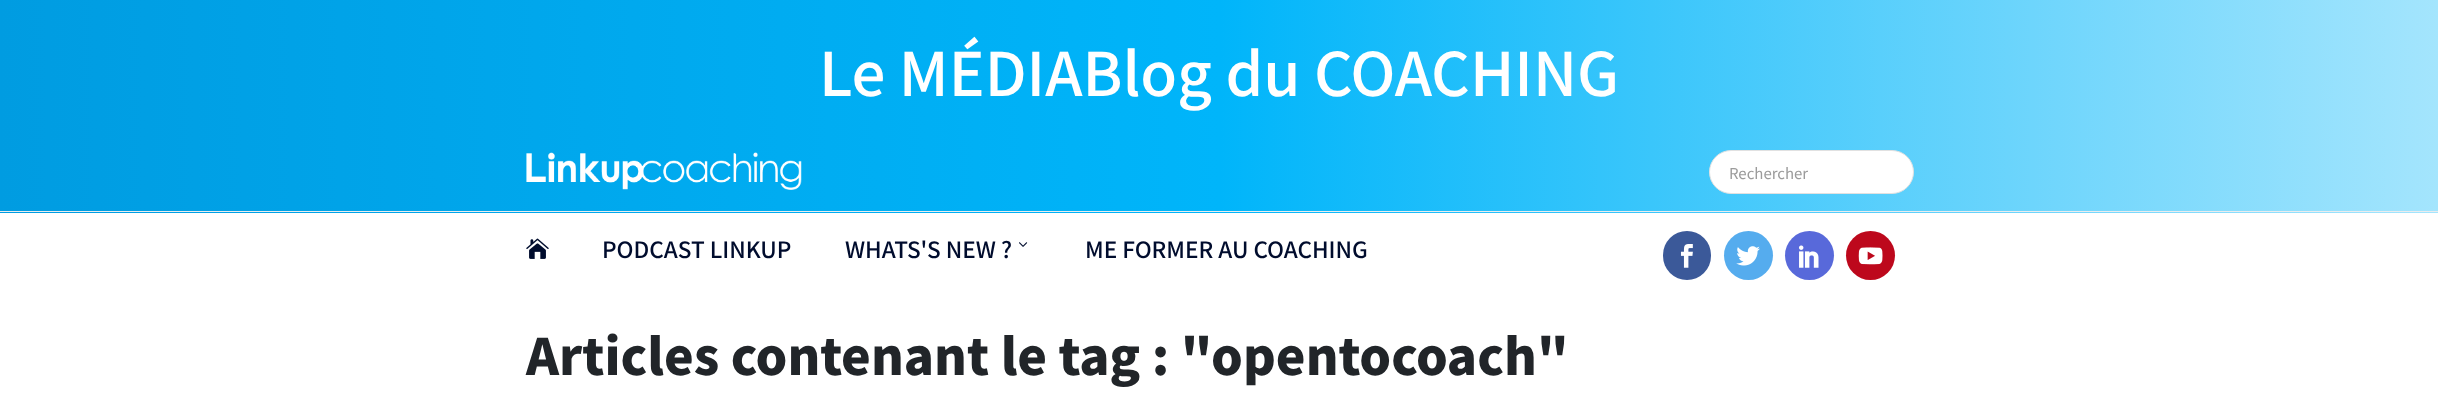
(async () => {
    const canvas = document.querySelector("canvas");
    canvas.width = 2438;
    canvas.height = 402;
    const context = canvas.getContext("2d");
    context.miterLimit = 4;
    context.fontKerning = "normal";
    function write(s, x, y, font, color) {
        context.font = font;
        context.fillStyle = color;
        context.fillText(s, x, y);
    }
    function block(x, y, w, h, color) {
        context.fillStyle = color;
        context.fillRect(x, y, w, h);
    }
    function card(x, y, w, h, r, color) {
        context.fillStyle = color;
        context.beginPath();
        context.roundRect(x, y, w, h, r);
        context.fill();
    }
    async function photo(src, x, y, w, h) {
        const img = new Image();
        img.src = src;
        await img.decode();
        context.drawImage(img, x, y, w, h);
    }
    let gradient;

    block(0, 0, 2438, 402, "rgb(255, 255, 255)");
    gradient = context.createLinearGradient(0, 106, 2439, 106);
    gradient.addColorStop(0, "rgb(0, 156, 225)");
    gradient.addColorStop(0.5, "rgb(0, 181, 250)");
    gradient.addColorStop(1, "rgb(164, 229, 253)");
    context.fillStyle = gradient;
    context.fillRect(0, 0, 2438, 213);
    block(0, 211, 2438, 1, "rgb(234, 236, 238)");
    write("Le MÉDIABlog du COACHING", 819, 96, "500 60px Noto Sans JP", "rgb(255, 255, 255)");
    await photo("media/1.png", 526, 152, 276, 38);
    context.beginPath();
    context.roundRect(1709.5, 150.5, 204, 43, 21.5);
    context.fill();
    context.strokeStyle = "rgb(225, 225, 225)";
    context.stroke();
    write("Rechercher", 1729, 179, "15px Noto Sans JP", "rgb(155, 155, 155)");
    await photo("media/2.png", 526, 238, 23, 21);
    write("PODCAST LINKUP", 602, 258, "500 22.5px Noto Sans JP", "rgb(0, 12, 45)");
    write("WHATS'S NEW ?", 845, 258, "500 22.5px Noto Sans JP", "rgb(0, 12, 45)");
    await photo("media/3.png", 1019, 242, 9, 5);
    write("ME FORMER AU COACHING", 1085, 258, "500 22.5px Noto Sans JP", "rgb(0, 12, 45)");
    card(1663, 231, 48, 49, 24, "rgb(59, 89, 153)");
    await photo("media/4.png", 1680, 244, 13, 24);
    context.fillStyle = "rgb(85, 172, 238)";
    context.beginPath();
    context.arc(1748.5, 255.5, 24.5, 0, Math.PI * 2);
    context.fill();
    await photo("media/5.png", 1736, 246, 24, 20);
    context.fillStyle = "rgb(88, 105, 218)";
    context.beginPath();
    context.arc(1809.5, 255.5, 24.5, 0, Math.PI * 2);
    context.fill();
    await photo("media/6.png", 1799, 245, 20, 23);
    context.fillStyle = "rgb(189, 8, 28)";
    context.beginPath();
    context.arc(1870.5, 255.5, 24.5, 0, Math.PI * 2);
    context.fill();
    await photo("media/7.png", 1858, 247, 25, 18);
    write("Articles contenant le tag : \"opentocoach\"", 526, 375, "900 50px Noto Sans JP", "rgb(33, 37, 41)");
})();
